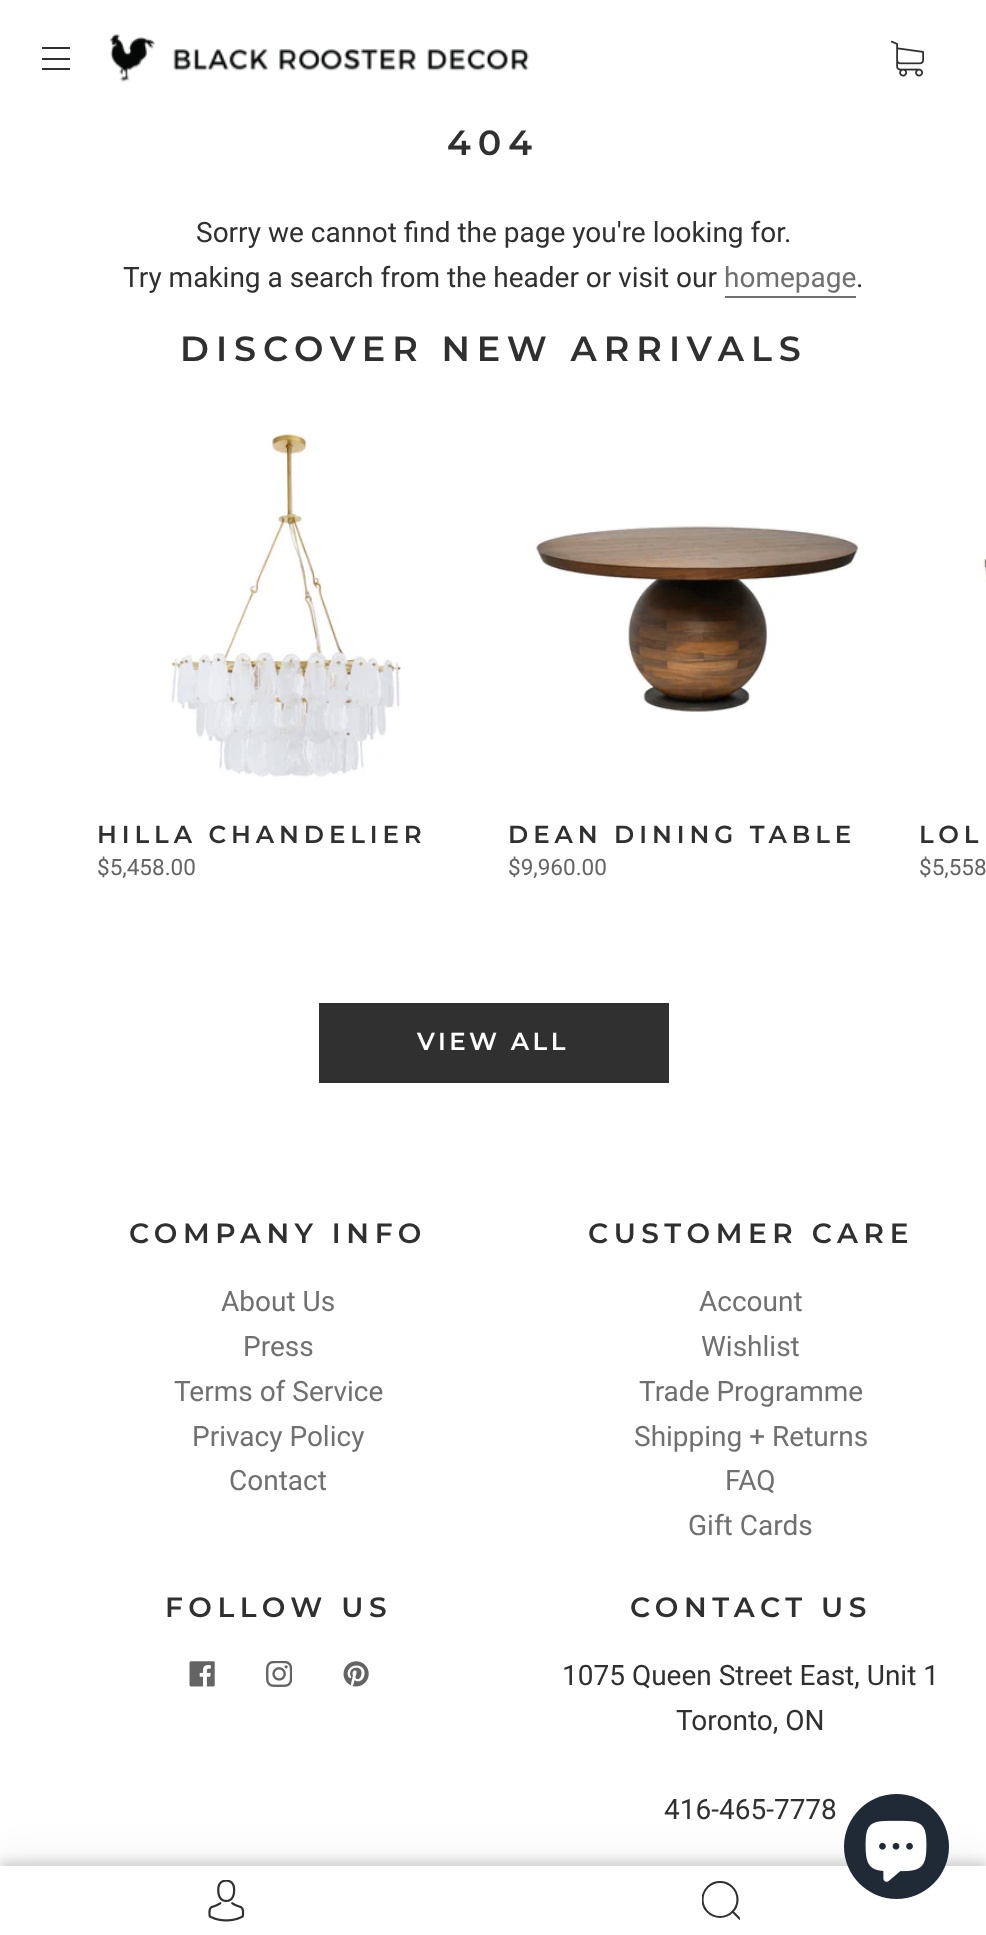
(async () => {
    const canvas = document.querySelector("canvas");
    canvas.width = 986;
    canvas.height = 1935;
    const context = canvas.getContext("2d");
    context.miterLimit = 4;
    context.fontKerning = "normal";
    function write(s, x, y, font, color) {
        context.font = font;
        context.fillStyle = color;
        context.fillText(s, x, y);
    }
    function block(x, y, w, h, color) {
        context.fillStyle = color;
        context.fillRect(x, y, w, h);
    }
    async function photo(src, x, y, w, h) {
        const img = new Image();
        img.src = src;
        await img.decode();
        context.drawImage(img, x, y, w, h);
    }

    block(0, 0, 986, 1935, "rgb(255, 255, 255)");
    block(42, 47, 28, 2, "rgb(48, 48, 48)");
    block(42, 58, 28, 2, "rgb(48, 48, 48)");
    block(42, 68, 28, 2, "rgb(48, 48, 48)");
    await photo("media/1.png", 109, 34, 420, 49);
    await photo("media/2.png", 891, 40, 33, 37);
    context.letterSpacing = "7px";
    write("404", 447, 155, "600 35px Montserrat", "rgb(48, 48, 48)");
    context.letterSpacing = "0px";
    write("Sorry we cannot find the page you're looking for.", 196, 242, "28px Roboto", "rgb(48, 48, 48)");
    write("Try making a search from the header or visit our", 123, 287, "28px Roboto", "rgb(48, 48, 48)");
    write("homepage", 724, 287, "28px Roboto", "rgb(112, 112, 112)");
    block(725, 296, 131, 2, "rgb(112, 112, 112)");
    write(".", 856, 287, "28px Roboto", "rgb(48, 48, 48)");
    context.letterSpacing = "7px";
    write("DISCOVER NEW ARRIVALS", 180, 361, "600 35px Montserrat", "rgb(48, 48, 48)");
    await photo("media/3.png", 170, 433, 232, 347);
    context.letterSpacing = "4.9px";
    write("HILLA CHANDELIER", 97, 843, "600 24.5px Montserrat", "rgb(48, 48, 48)");
    context.letterSpacing = "0px";
    write("$5,458.00", 97, 875, "22.5px Roboto", "rgb(100, 100, 100)");
    await photo("media/4.png", 534, 524, 326, 189);
    context.letterSpacing = "4.9px";
    write("DEAN DINING TABLE", 508, 843, "600 24.5px Montserrat", "rgb(48, 48, 48)");
    context.letterSpacing = "0px";
    write("$9,960.00", 508, 875, "22.5px Roboto", "rgb(100, 100, 100)");
    await photo("media/5.png", 981, 557, 5, 26);
    context.letterSpacing = "4.9px";
    write("LOL", 919, 843, "600 24.5px Montserrat", "rgb(48, 48, 48)");
    context.letterSpacing = "0px";
    write("$5,558", 919, 875, "22.5px Roboto", "rgb(100, 100, 100)");
    block(319, 1003, 350, 80, "rgb(48, 48, 48)");
    context.letterSpacing = "3.5px";
    write("VIEW ALL", 417, 1050, "600 24.5px Montserrat", "rgb(255, 255, 255)");
    context.letterSpacing = "5.6px";
    write("COMPANY INFO", 129, 1243, "600 28px Montserrat", "rgb(48, 48, 48)");
    context.letterSpacing = "0px";
    write("About Us", 221, 1311, "28px Roboto", "rgb(112, 112, 112)");
    write("Press", 243, 1356, "28px Roboto", "rgb(112, 112, 112)");
    write("Terms of Service", 174, 1401, "28px Roboto", "rgb(112, 112, 112)");
    write("Privacy Policy", 192, 1446, "28px Roboto", "rgb(112, 112, 112)");
    write("Contact", 229, 1490, "28px Roboto", "rgb(112, 112, 112)");
    context.letterSpacing = "5.6px";
    write("CUSTOMER CARE", 588, 1243, "600 28px Montserrat", "rgb(48, 48, 48)");
    context.letterSpacing = "0px";
    write("Account", 699, 1311, "28px Roboto", "rgb(112, 112, 112)");
    write("Wishlist", 701, 1356, "28px Roboto", "rgb(112, 112, 112)");
    write("Trade Programme", 639, 1401, "28px Roboto", "rgb(112, 112, 112)");
    write("Shipping + Returns", 634, 1446, "28px Roboto", "rgb(112, 112, 112)");
    write("FAQ", 725, 1490, "28px Roboto", "rgb(112, 112, 112)");
    write("Gift Cards", 688, 1535, "28px Roboto", "rgb(112, 112, 112)");
    context.letterSpacing = "5.6px";
    write("FOLLOW US", 165, 1617, "600 28px Montserrat", "rgb(48, 48, 48)");
    await photo("media/6.png", 189, 1661, 26, 26);
    await photo("media/7.png", 266, 1661, 26, 26);
    await photo("media/8.png", 343, 1661, 26, 26);
    write("CONTACT US", 630, 1617, "600 28px Montserrat", "rgb(48, 48, 48)");
    context.letterSpacing = "0px";
    write("1075 Queen Street East, Unit 1", 562, 1685, "28px Roboto", "rgb(48, 48, 48)");
    write("Toronto, ON", 676, 1730, "28px Roboto", "rgb(48, 48, 48)");
    write("416-465-7778", 664, 1819, "28px Roboto", "rgb(48, 48, 48)");
    context.fillStyle = "rgba(0, 0, 0, 0.06)";
    context.filter = "blur(17.5px)";
    context.beginPath();
    context.rect(0, 1855, 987, 70);
    context.fill();
    context.filter = "none";
    context.fillStyle = "rgba(0, 0, 0, 0.12)";
    context.filter = "blur(4.5px)";
    context.beginPath();
    context.rect(0, 1860, 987, 70);
    context.fill();
    context.filter = "none";
    block(0, 1866, 986, 69, "rgb(255, 255, 255)");
    await photo("media/9.png", 208, 1880, 37, 42);
    context.save();
    context.beginPath();
    context.rect(702, 1881, 38, 39);
    context.clip();
    context.beginPath();
    context.arc(720, 1899.5, 17.5, 0, Math.PI * 2);
    context.strokeStyle = "rgb(48, 48, 48)";
    context.lineWidth = 2.1;
    context.stroke();
    context.beginPath();
    context.moveTo(732, 1911);
    context.lineTo(744.5, 1923.5);
    context.stroke();
    context.restore();
    context.fillStyle = "rgb(32, 42, 54)";
    context.beginPath();
    context.arc(896.5, 1846.5, 52.5, 0, Math.PI * 2);
    context.fill();
    await photo("media/10.png", 865, 1820, 62, 62);
})();
